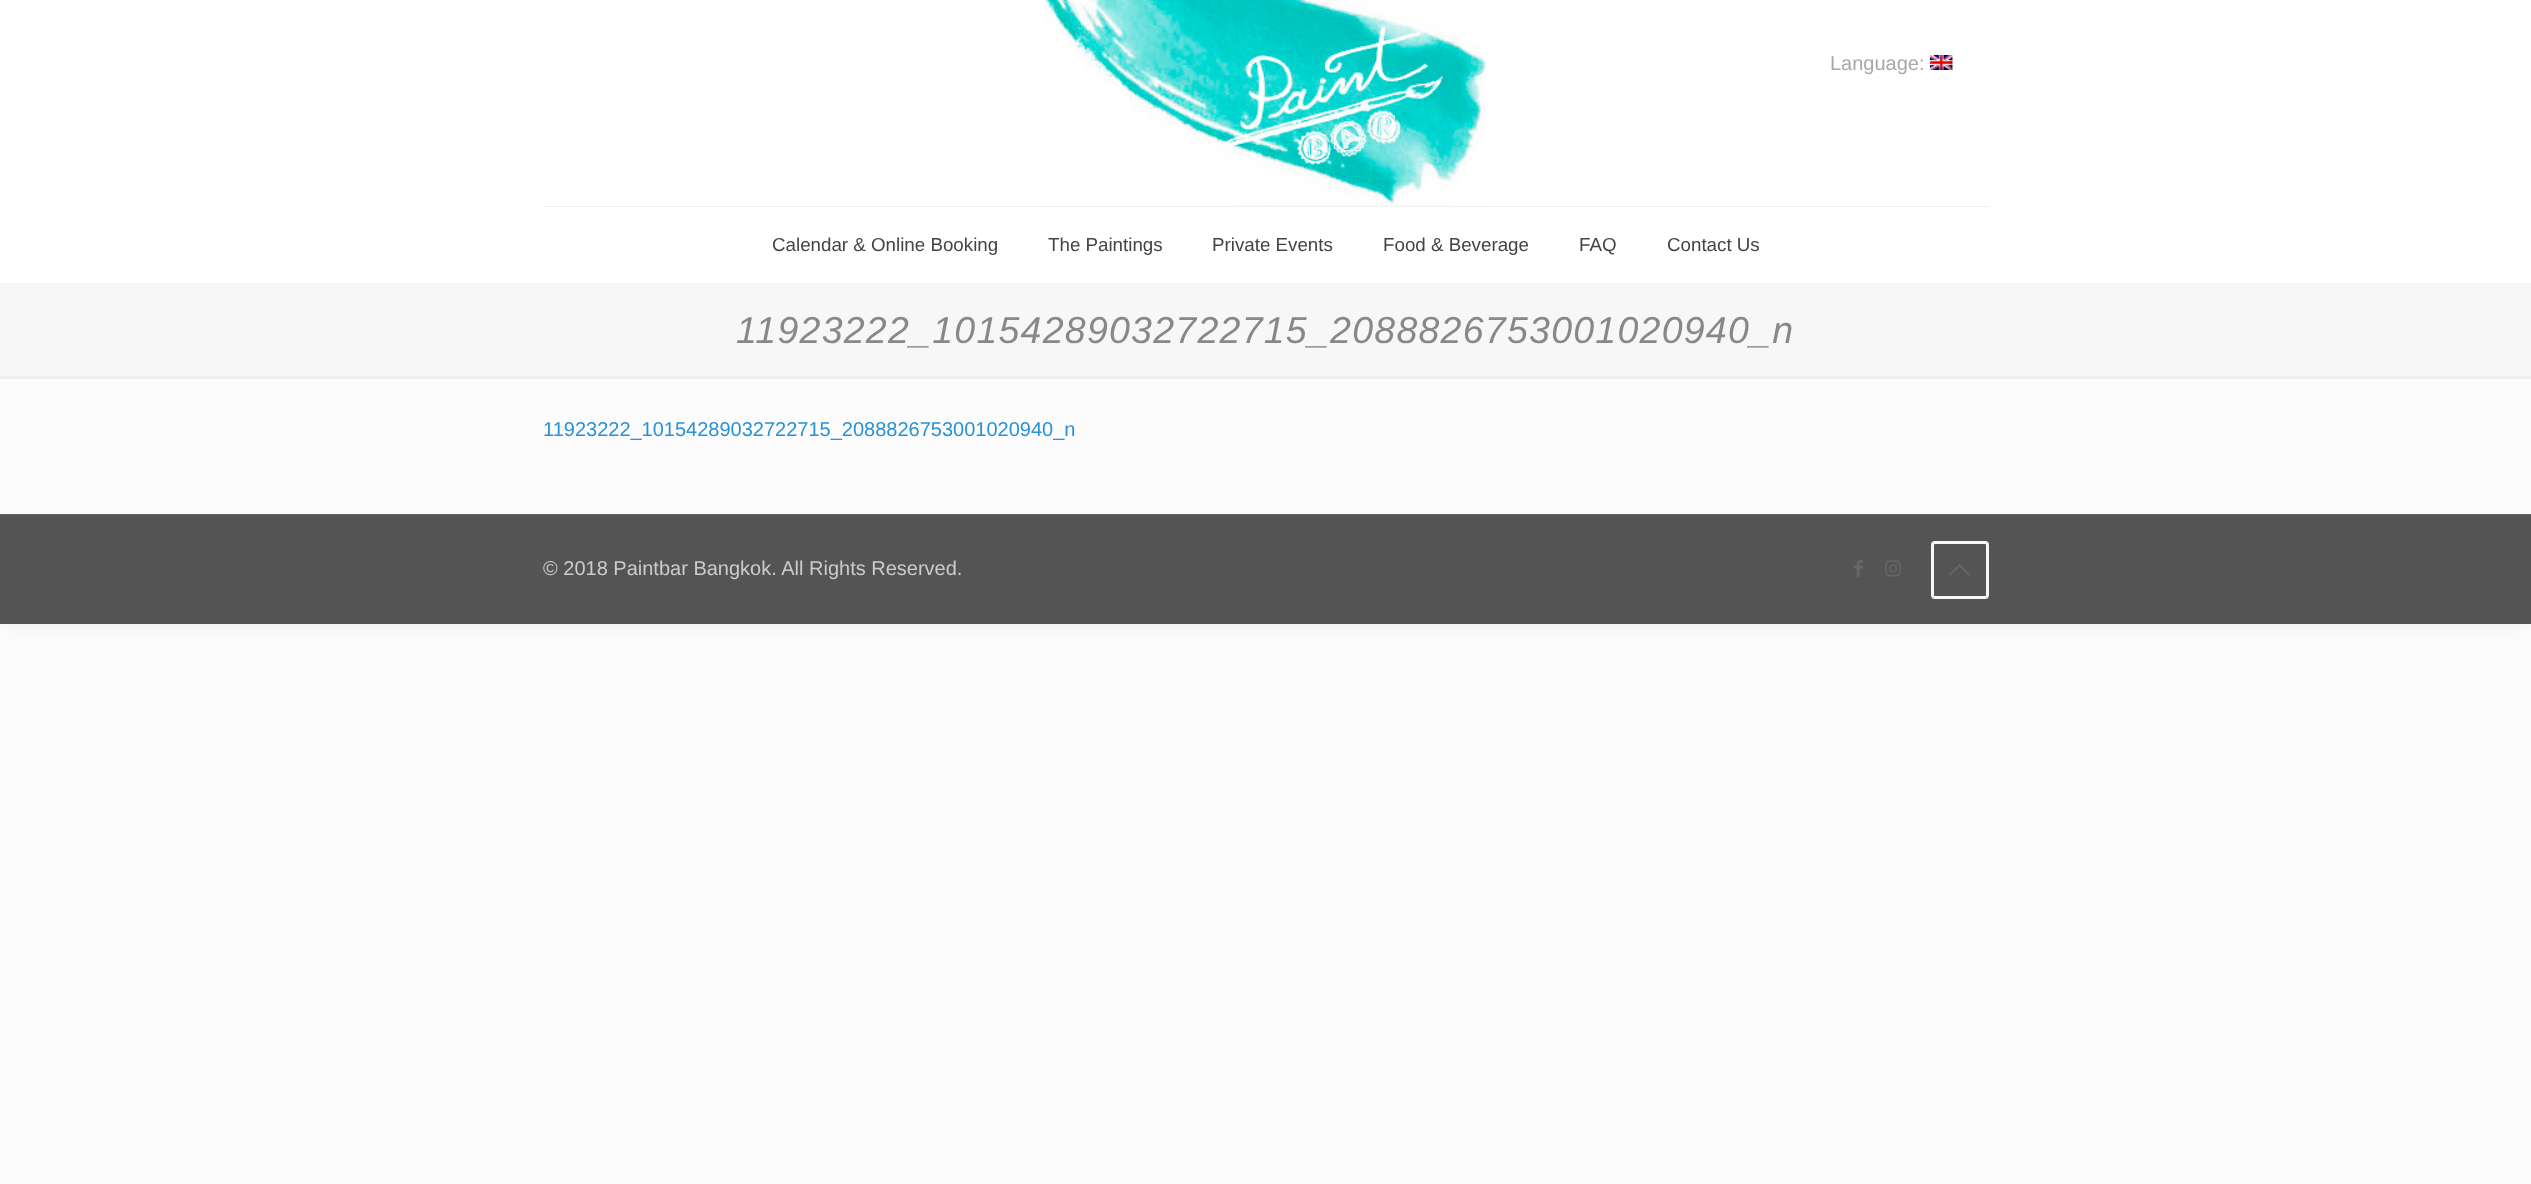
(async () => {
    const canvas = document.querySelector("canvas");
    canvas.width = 2531;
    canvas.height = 1184;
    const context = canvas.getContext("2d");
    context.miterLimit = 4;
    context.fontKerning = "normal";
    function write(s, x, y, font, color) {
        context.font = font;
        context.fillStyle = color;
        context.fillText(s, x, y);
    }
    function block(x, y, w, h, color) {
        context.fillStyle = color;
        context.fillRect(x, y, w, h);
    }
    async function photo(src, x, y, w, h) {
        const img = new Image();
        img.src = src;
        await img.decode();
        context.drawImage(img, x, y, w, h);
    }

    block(0, 0, 2531, 1184, "rgb(252, 252, 252)");
    context.fillStyle = "rgba(0, 0, 0, 0.06)";
    context.filter = "blur(9.5px)";
    context.beginPath();
    context.rect(0, 0, 2531, 624);
    context.fill();
    context.filter = "none";
    block(0, 379, 2531, 135, "rgb(252, 252, 252)");
    block(0, 0, 2531, 283, "rgb(255, 255, 255)");
    block(543, 206, 1446, 1, "rgb(235, 235, 235)");
    await photo("media/1.png", 1045, 0, 442, 207);
    write("Language:", 1830, 70, "20px Liberation Sans", "rgb(168, 168, 168)");
    await photo("media/2.png", 1930, 55, 23, 15);
    write("Calendar & Online Booking", 772, 251, "18.75px Liberation Sans", "rgb(68, 68, 68)");
    write("The Paintings", 1048, 251, "18.75px Liberation Sans", "rgb(68, 68, 68)");
    write("Private Events", 1212, 251, "18.75px Liberation Sans", "rgb(68, 68, 68)");
    write("Food & Beverage", 1383, 251, "18.75px Liberation Sans", "rgb(68, 68, 68)");
    write("FAQ", 1579, 251, "18.75px Liberation Sans", "rgb(68, 68, 68)");
    write("Contact Us", 1667, 251, "18.75px Liberation Sans", "rgb(68, 68, 68)");
    block(0, 283, 2531, 93, "rgb(247, 247, 247)");
    context.letterSpacing = "1.25px";
    write("11923222_10154289032722715_2088826753001020940_n", 736, 343, "italic 37.5px Liberation Sans", "rgb(136, 136, 136)");
    block(0, 376, 2531, 3, "rgb(239, 239, 239)");
    context.letterSpacing = "0px";
    write("11923222_10154289032722715_2088826753001020940_n", 543, 436, "20px Liberation Sans", "rgb(41, 145, 214)");
    block(0, 515, 2531, 109, "rgb(84, 84, 84)");
    block(0, 514, 2531, 1, "rgb(101, 101, 101)");
    write("© 2018 Paintbar Bangkok. All Rights Reserved.", 543, 575, "20px Liberation Sans", "rgb(204, 204, 204)");
    await photo("media/3.png", 1853, 560, 10, 17);
    await photo("media/4.png", 1885, 560, 16, 17);
    context.beginPath();
    context.roundRect(1932.5, 542.5, 55, 55, 2.5);
    context.strokeStyle = "rgb(247, 247, 247)";
    context.lineWidth = 3;
    context.stroke();
    await photo("media/5.png", 1949, 564, 21, 12);
})();
